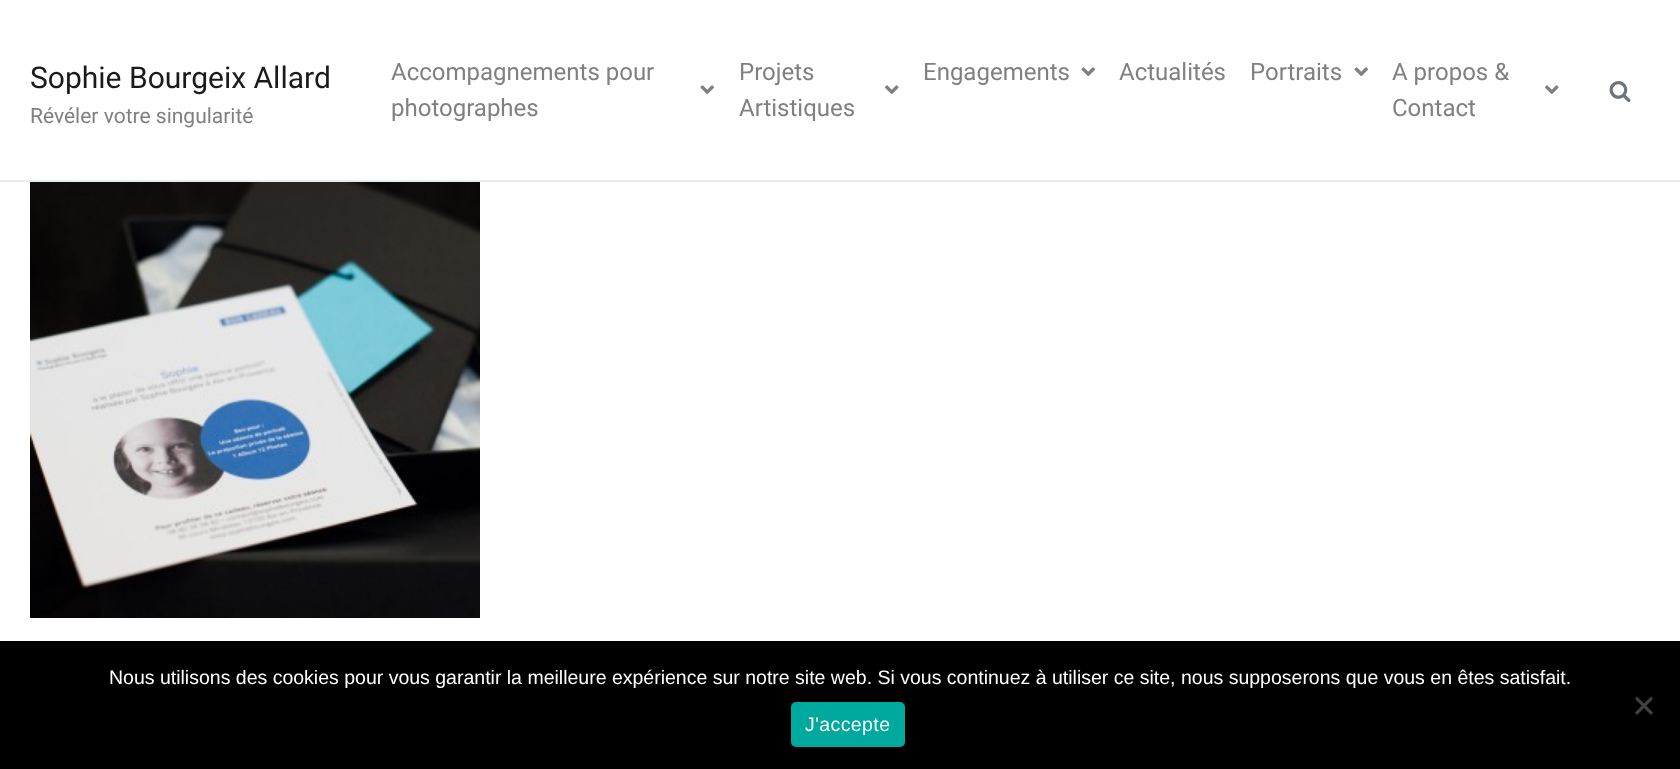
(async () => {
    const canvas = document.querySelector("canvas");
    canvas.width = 1680;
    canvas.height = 769;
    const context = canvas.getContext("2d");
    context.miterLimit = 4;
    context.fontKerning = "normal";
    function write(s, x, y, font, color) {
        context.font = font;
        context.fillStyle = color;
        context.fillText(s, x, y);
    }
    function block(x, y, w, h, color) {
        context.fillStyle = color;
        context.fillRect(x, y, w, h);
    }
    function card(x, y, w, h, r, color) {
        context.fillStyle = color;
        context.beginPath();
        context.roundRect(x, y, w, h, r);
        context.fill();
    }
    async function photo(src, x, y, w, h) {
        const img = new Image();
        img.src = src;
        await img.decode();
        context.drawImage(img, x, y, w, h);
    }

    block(0, 0, 1680, 769, "rgb(255, 255, 255)");
    block(0, 180, 1680, 2, "rgb(233, 236, 239)");
    write("Sophie Bourgeix Allard", 30, 88, "30px Roboto", "rgb(26, 26, 26)");
    write("Révéler votre singularité", 30, 123, "21px Roboto", "rgb(128, 128, 128)");
    write("Accompagnements pour", 391, 80, "24px Roboto", "rgb(128, 128, 128)");
    await photo("media/1.png", 700, 85, 14, 9);
    write("photographes", 391, 116, "24px Roboto", "rgb(128, 128, 128)");
    write("Projets", 739, 80, "24px Roboto", "rgb(128, 128, 128)");
    await photo("media/2.png", 885, 85, 14, 9);
    write("Artistiques", 739, 116, "24px Roboto", "rgb(128, 128, 128)");
    write("Engagements", 923, 80, "24px Roboto", "rgb(128, 128, 128)");
    await photo("media/1.png", 1081, 67, 14, 9);
    write("Actualités", 1119, 80, "24px Roboto", "rgb(128, 128, 128)");
    write("Portraits", 1250, 80, "24px Roboto", "rgb(128, 128, 128)");
    await photo("media/1.png", 1354, 67, 14, 9);
    write("A propos &", 1392, 80, "24px Roboto", "rgb(128, 128, 128)");
    await photo("media/2.png", 1545, 85, 14, 9);
    write("Contact", 1392, 116, "24px Roboto", "rgb(128, 128, 128)");
    await photo("media/3.png", 1609, 81, 22, 22);
    await photo("media/4.png", 30, 182, 450, 436);
    block(0, 641, 1680, 128, "rgb(0, 0, 0)");
    write("Nous utilisons des cookies pour vous garantir la meilleure expérience sur notre site web. Si vous continuez à utiliser ce site, nous supposerons que vous en êtes satisfait.", 109, 684, "19.5px Liberation Sans", "rgb(255, 255, 255)");
    context.fillStyle = "rgb(64, 64, 64)";
    context.beginPath();
    context.moveTo(1651, 696.5);
    context.lineTo(1653, 699);
    context.lineTo(1637, 715);
    context.lineTo(1635, 712.5);
    context.closePath();
    context.fill();
    context.beginPath();
    context.moveTo(1635, 699);
    context.lineTo(1637, 696.5);
    context.lineTo(1653, 712.5);
    context.lineTo(1651, 715);
    context.closePath();
    context.fill();
    card(791, 702, 114, 45, 5, "rgb(0, 169, 157)");
    context.letterSpacing = "0.4px";
    write("J'accepte", 805, 731, "19.5px Liberation Sans", "rgb(255, 255, 255)");
})();
